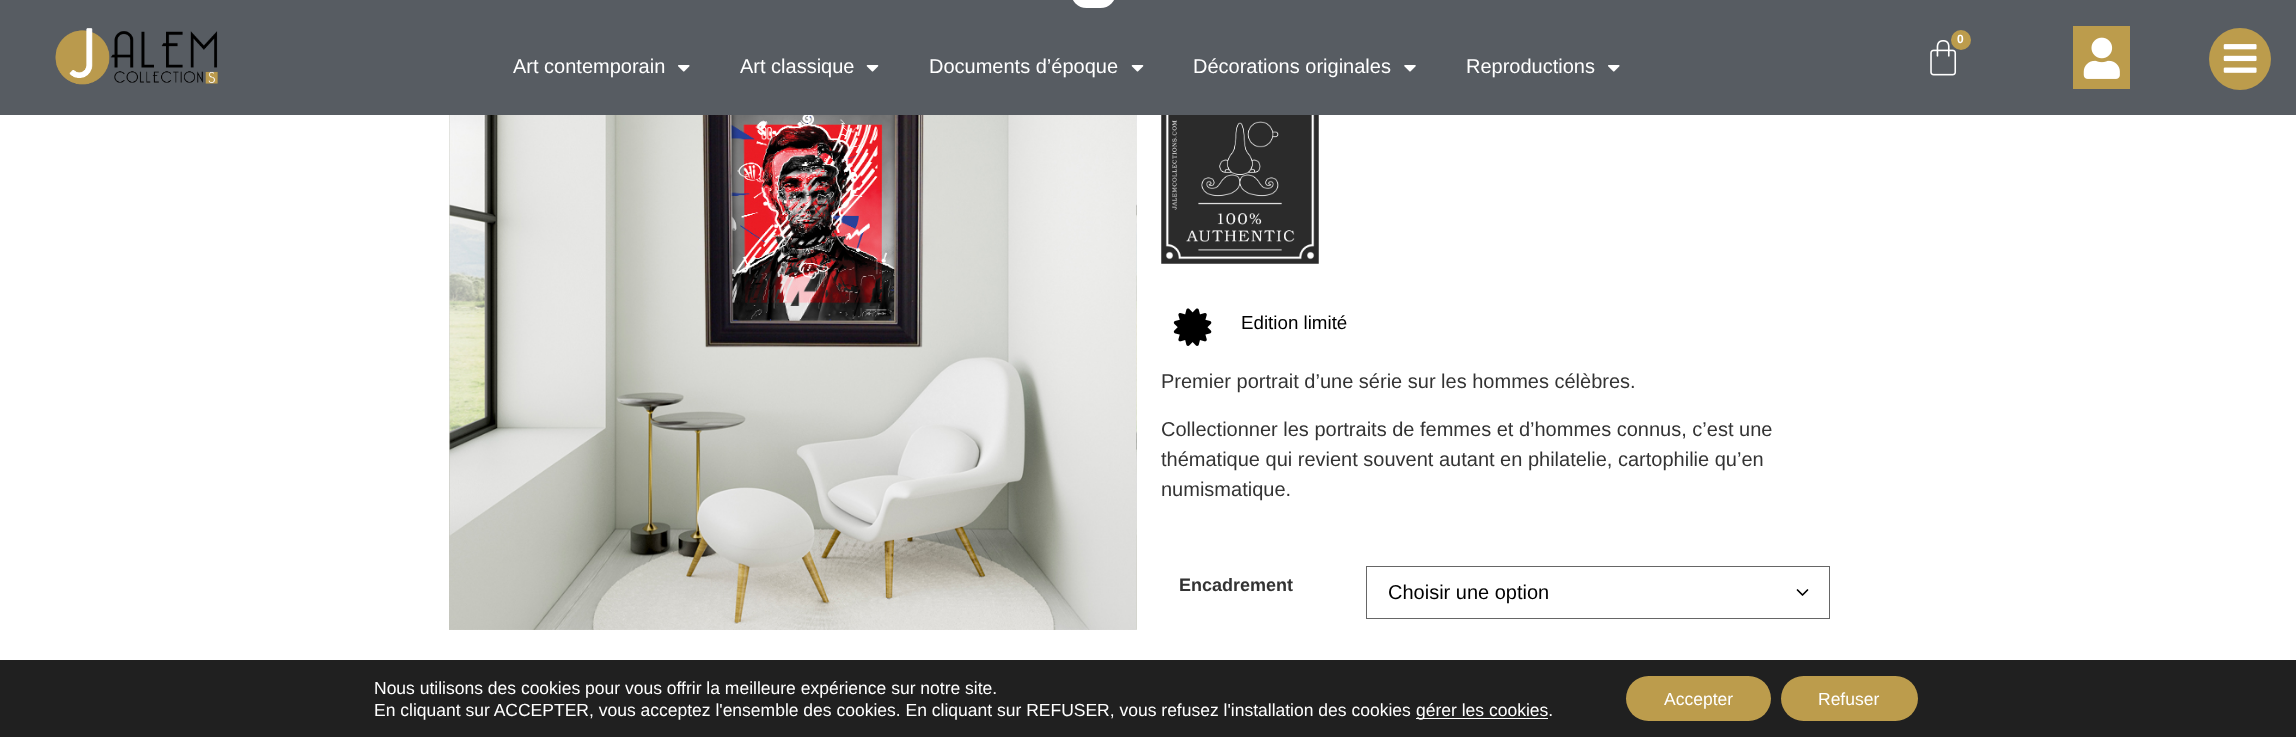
(async () => {
    const canvas = document.querySelector("canvas");
    canvas.width = 2296;
    canvas.height = 737;
    const context = canvas.getContext("2d");
    context.miterLimit = 4;
    context.fontKerning = "normal";
    function write(s, x, y, font, color) {
        context.font = font;
        context.fillStyle = color;
        context.fillText(s, x, y);
    }
    function block(x, y, w, h, color) {
        context.fillStyle = color;
        context.fillRect(x, y, w, h);
    }
    function card(x, y, w, h, r, color) {
        context.fillStyle = color;
        context.beginPath();
        context.roundRect(x, y, w, h, r);
        context.fill();
    }
    async function photo(src, x, y, w, h) {
        const img = new Image();
        img.src = src;
        await img.decode();
        context.drawImage(img, x, y, w, h);
    }

    block(0, 0, 2296, 737, "rgb(255, 255, 255)");
    block(0, 0, 2296, 115, "rgb(87, 92, 98)");
    await photo("media/1.png", 55, 28, 163, 57);
    await photo("media/2.png", 1930, 40, 27, 36);
    context.fillStyle = "rgb(188, 156, 76)";
    context.beginPath();
    context.arc(1961, 40, 10, 0, Math.PI * 2);
    context.fill();
    write("0", 1957, 43, "bold 12px Liberation Sans", "rgb(255, 255, 255)");
    block(2073, 26, 57, 63, "rgb(188, 156, 76)");
    await photo("media/3.png", 2083, 37, 37, 42);
    context.beginPath();
    context.arc(2240, 59, 31, 0, Math.PI * 2);
    context.fill();
    await photo("media/4.png", 2223, 44, 34, 29);
    write("Art contemporain", 513, 73, "20px Liberation Sans", "rgb(255, 255, 255)");
    await photo("media/5.png", 678, 65, 12, 7);
    write("Art classique", 740, 73, "20px Liberation Sans", "rgb(255, 255, 255)");
    await photo("media/6.png", 866, 65, 13, 7);
    write("Documents d’époque", 929, 73, "20px Liberation Sans", "rgb(255, 255, 255)");
    await photo("media/6.png", 1131, 65, 13, 7);
    write("Décorations originales", 1193, 73, "20px Liberation Sans", "rgb(255, 255, 255)");
    await photo("media/7.png", 1404, 65, 12, 7);
    write("Reproductions", 1466, 73, "20px Liberation Sans", "rgb(255, 255, 255)");
    await photo("media/5.png", 1608, 65, 12, 7);
    card(1071, -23, 45, 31, 22.5, "rgb(255, 255, 255)");
    await photo("media/8.png", 449, 115, 687, 515);
    await photo("media/9.png", 1136, 115, 1, 515);
    await photo("media/10.png", 1161, 115, 158, 149);
    await photo("media/11.png", 1173, 308, 39, 38);
    write("Edition limité", 1241, 329, "18.75px Liberation Sans", "rgb(0, 0, 0)");
    write("Premier portrait d’une série sur les hommes célèbres.", 1161, 388, "20px Liberation Sans", "rgb(51, 51, 51)");
    write("Collectionner les portraits de femmes et d’hommes connus, c’est une", 1161, 436, "20px Liberation Sans", "rgb(51, 51, 51)");
    write("thématique qui revient souvent autant en philatelie, cartophilie qu’en", 1161, 466, "20px Liberation Sans", "rgb(51, 51, 51)");
    write("numismatique.", 1161, 496, "20px Liberation Sans", "rgb(51, 51, 51)");
    write("Encadrement", 1179, 591, "bold 18px Liberation Sans", "rgb(51, 51, 51)");
    context.beginPath();
    context.moveTo(1797.5, 590);
    context.lineTo(1802.5, 595);
    context.lineTo(1807.5, 590);
    context.strokeStyle = "rgb(0, 0, 0)";
    context.lineWidth = 1.7;
    context.lineCap = "round";
    context.lineJoin = "round";
    context.stroke();
    context.strokeStyle = "rgb(102, 102, 102)";
    context.lineWidth = 1;
    context.lineJoin = "miter";
    context.strokeRect(1366.5, 566.5, 463, 52);
    write("Choisir une option", 1388, 599, "20px Liberation Sans", "rgb(0, 0, 0)");
    block(0, 660, 2296, 77, "rgb(32, 32, 32)");
    write("Nous utilisons des cookies pour vous offrir la meilleure expérience sur notre site.", 374, 694, "17.5px Liberation Sans", "rgb(255, 255, 255)");
    write("En cliquant sur ACCEPTER, vous acceptez l'ensemble des cookies. En cliquant sur REFUSER, vous refusez l'installation des cookies", 374, 716, "17.5px Liberation Sans", "rgb(255, 255, 255)");
    block(1416, 718, 132, 1, "rgb(255, 255, 255)");
    write("gérer les cookies.", 1416, 716, "17.5px Liberation Sans", "rgb(255, 255, 255)");
    card(1626, 676, 145, 45, 22.5, "rgb(188, 156, 76)");
    write("Accepter", 1664, 705, "17.5px Liberation Sans", "rgb(255, 255, 255)");
    card(1781, 676, 137, 45, 22.5, "rgb(188, 156, 76)");
    write("Refuser", 1818, 705, "17.5px Liberation Sans", "rgb(255, 255, 255)");
})();
